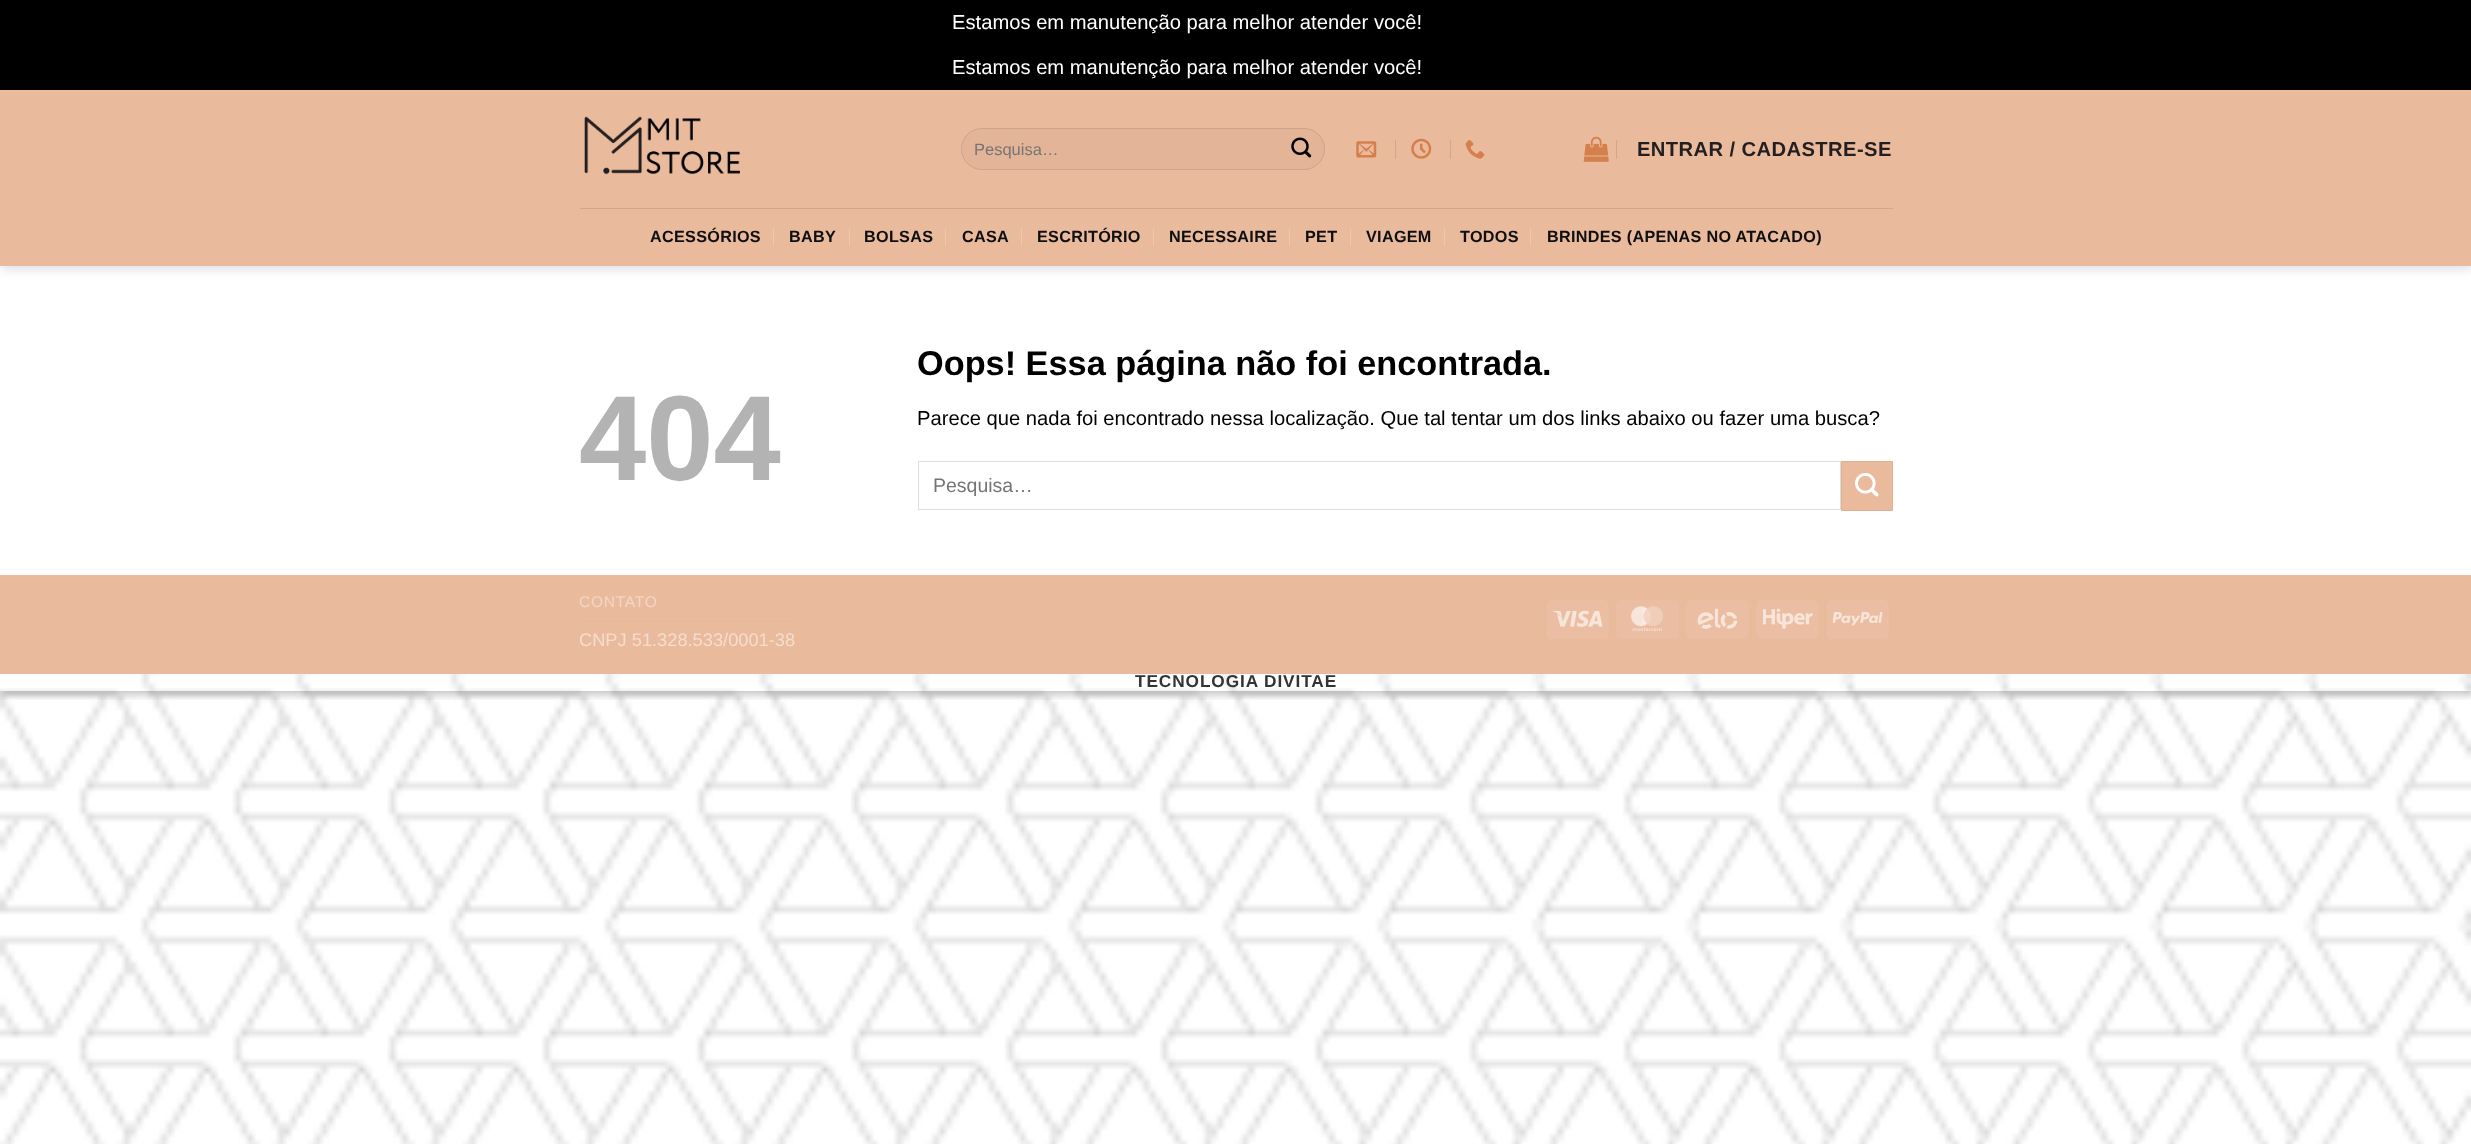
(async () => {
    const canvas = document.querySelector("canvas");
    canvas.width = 2471;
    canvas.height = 1144;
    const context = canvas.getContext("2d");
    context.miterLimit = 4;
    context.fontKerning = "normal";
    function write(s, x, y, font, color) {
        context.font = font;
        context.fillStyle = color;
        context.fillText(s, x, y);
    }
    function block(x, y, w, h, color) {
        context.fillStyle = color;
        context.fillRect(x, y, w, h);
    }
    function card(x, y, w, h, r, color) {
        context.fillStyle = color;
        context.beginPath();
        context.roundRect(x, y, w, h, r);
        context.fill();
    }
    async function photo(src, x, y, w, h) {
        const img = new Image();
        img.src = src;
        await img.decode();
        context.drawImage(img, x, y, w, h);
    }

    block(0, 0, 2471, 1144, "rgb(255, 255, 255)");
    await photo("media/1.png", 0, 674, 2471, 470);
    context.save();
    context.beginPath();
    context.rect(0, 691, 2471, 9);
    context.clip();
    context.fillStyle = "rgba(0, 0, 0, 0.23)";
    context.filter = "blur(4px)";
    context.beginPath();
    context.rect(0, 4, 2471, 691);
    context.fill();
    context.filter = "none";
    context.restore();
    block(0, 0, 2471, 90, "rgb(0, 0, 0)");
    write("Estamos em manutenção para melhor atender você!", 952, 29, "20.2px Liberation Sans", "rgb(255, 255, 255)");
    write("Estamos em manutenção para melhor atender você!", 952, 74, "20.2px Liberation Sans", "rgb(255, 255, 255)");
    context.fillStyle = "rgba(0, 0, 0, 0.15)";
    context.filter = "blur(6px)";
    context.beginPath();
    context.rect(1, 91, 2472, 177);
    context.fill();
    context.filter = "none";
    block(0, 90, 2471, 176, "rgb(234, 186, 157)");
    await photo("media/2.png", 584, 116, 156, 59);
    card(961, 128, 364, 42, 21, "rgb(227, 180, 152)");
    context.beginPath();
    context.roundRect(961.5, 128.5, 363, 41, 20.5);
    context.strokeStyle = "rgba(0, 0, 0, 0.09)";
    context.stroke();
    write("Pesquisa…", 974, 155, "16.5px Liberation Sans", "rgb(117, 117, 117)");
    await photo("media/3.png", 1291, 137, 21, 21);
    await photo("media/4.png", 1356, 141, 21, 17);
    block(1395, 140, 1, 19, "rgb(211, 167, 141)");
    await photo("media/5.png", 1411, 138, 21, 21);
    block(1450, 140, 1, 19, "rgb(211, 167, 141)");
    await photo("media/6.png", 1465, 140, 20, 19);
    await photo("media/7.png", 1583, 136, 26, 26);
    block(1616, 140, 1, 19, "rgb(211, 167, 141)");
    context.letterSpacing = "0.4px";
    write("ENTRAR / CADASTRE-SE", 1637, 156, "bold 20.2px Liberation Sans", "rgb(35, 31, 32)");
    block(580, 208, 1313, 1, "rgb(211, 167, 141)");
    context.letterSpacing = "0.3px";
    write("ACESSÓRIOS", 650, 242, "bold 16.2px Liberation Sans", "rgb(15, 15, 15)");
    block(773, 228, 1, 18, "rgb(238, 200, 177)");
    write("BABY", 789, 242, "bold 16.2px Liberation Sans", "rgb(15, 15, 15)");
    block(849, 228, 1, 18, "rgb(238, 200, 177)");
    write("BOLSAS", 864, 242, "bold 16.2px Liberation Sans", "rgb(15, 15, 15)");
    block(945, 228, 1, 18, "rgb(238, 200, 177)");
    write("CASA", 962, 242, "bold 16.2px Liberation Sans", "rgb(15, 15, 15)");
    block(1021, 228, 1, 18, "rgb(238, 200, 177)");
    write("ESCRITÓRIO", 1037, 242, "bold 16.2px Liberation Sans", "rgb(15, 15, 15)");
    block(1153, 228, 1, 18, "rgb(238, 200, 177)");
    write("NECESSAIRE", 1169, 242, "bold 16.2px Liberation Sans", "rgb(15, 15, 15)");
    block(1289, 228, 1, 18, "rgb(238, 200, 177)");
    write("PET", 1305, 242, "bold 16.2px Liberation Sans", "rgb(15, 15, 15)");
    block(1350, 228, 1, 18, "rgb(238, 200, 177)");
    write("VIAGEM", 1366, 242, "bold 16.2px Liberation Sans", "rgb(15, 15, 15)");
    block(1444, 228, 1, 18, "rgb(238, 200, 177)");
    write("TODOS", 1460, 242, "bold 16.2px Liberation Sans", "rgb(15, 15, 15)");
    block(1530, 228, 1, 18, "rgb(238, 200, 177)");
    write("BRINDES (APENAS NO ATACADO)", 1547, 242, "bold 16.2px Liberation Sans", "rgb(15, 15, 15)");
    context.letterSpacing = "0px";
    write("404", 579, 480, "bold 121px Liberation Sans", "rgb(179, 179, 179)");
    write("Oops! Essa página não foi encontrada.", 917, 375, "bold 34.3px Liberation Sans", "rgb(0, 0, 0)");
    write("Parece que nada foi encontrado nessa localização. Que tal tentar um dos links abaixo ou fazer uma busca?", 917, 425, "20.2px Liberation Sans", "rgb(0, 0, 0)");
    context.strokeStyle = "rgb(221, 221, 221)";
    context.strokeRect(918.5, 461.5, 922, 48);
    write("Pesquisa…", 933, 492, "19.5px Liberation Sans", "rgb(117, 117, 117)");
    context.fillStyle = "rgb(234, 186, 157)";
    context.beginPath();
    context.rect(1841.5, 461.5, 51, 49);
    context.fill();
    context.strokeStyle = "rgb(222, 177, 149)";
    context.stroke();
    await photo("media/8.png", 1855, 473, 24, 24);
    block(0, 575, 2471, 99, "rgb(234, 186, 157)");
    block(580, 618, 215, 1, "rgb(235, 190, 163)");
    context.letterSpacing = "0.75px";
    write("CONTATO", 579, 607, "15.5px Liberation Sans", "rgb(243, 214, 196)");
    context.letterSpacing = "0px";
    write("CNPJ 51.328.533/0001-38", 579, 646, "18.25px Liberation Sans", "rgb(245, 221, 206)");
    card(1546, 600, 63, 39, 6, "rgb(235, 190, 163)");
    await photo("media/9.png", 1553, 610, 50, 17);
    card(1616, 600, 63, 39, 6, "rgb(235, 190, 163)");
    await photo("media/10.png", 1631, 606, 32, 25);
    card(1686, 600, 63, 39, 6, "rgb(235, 190, 163)");
    await photo("media/11.png", 1697, 608, 41, 21);
    card(1756, 600, 63, 39, 6, "rgb(235, 190, 163)");
    await photo("media/12.png", 1763, 608, 50, 21);
    card(1826, 600, 63, 39, 6, "rgb(235, 190, 163)");
    await photo("media/13.png", 1833, 612, 50, 14);
    context.letterSpacing = "0.9px";
    write("TECNOLOGIA DIVITAE", 1135, 687, "bold 17.25px Liberation Sans", "rgb(51, 51, 51)");
})();
